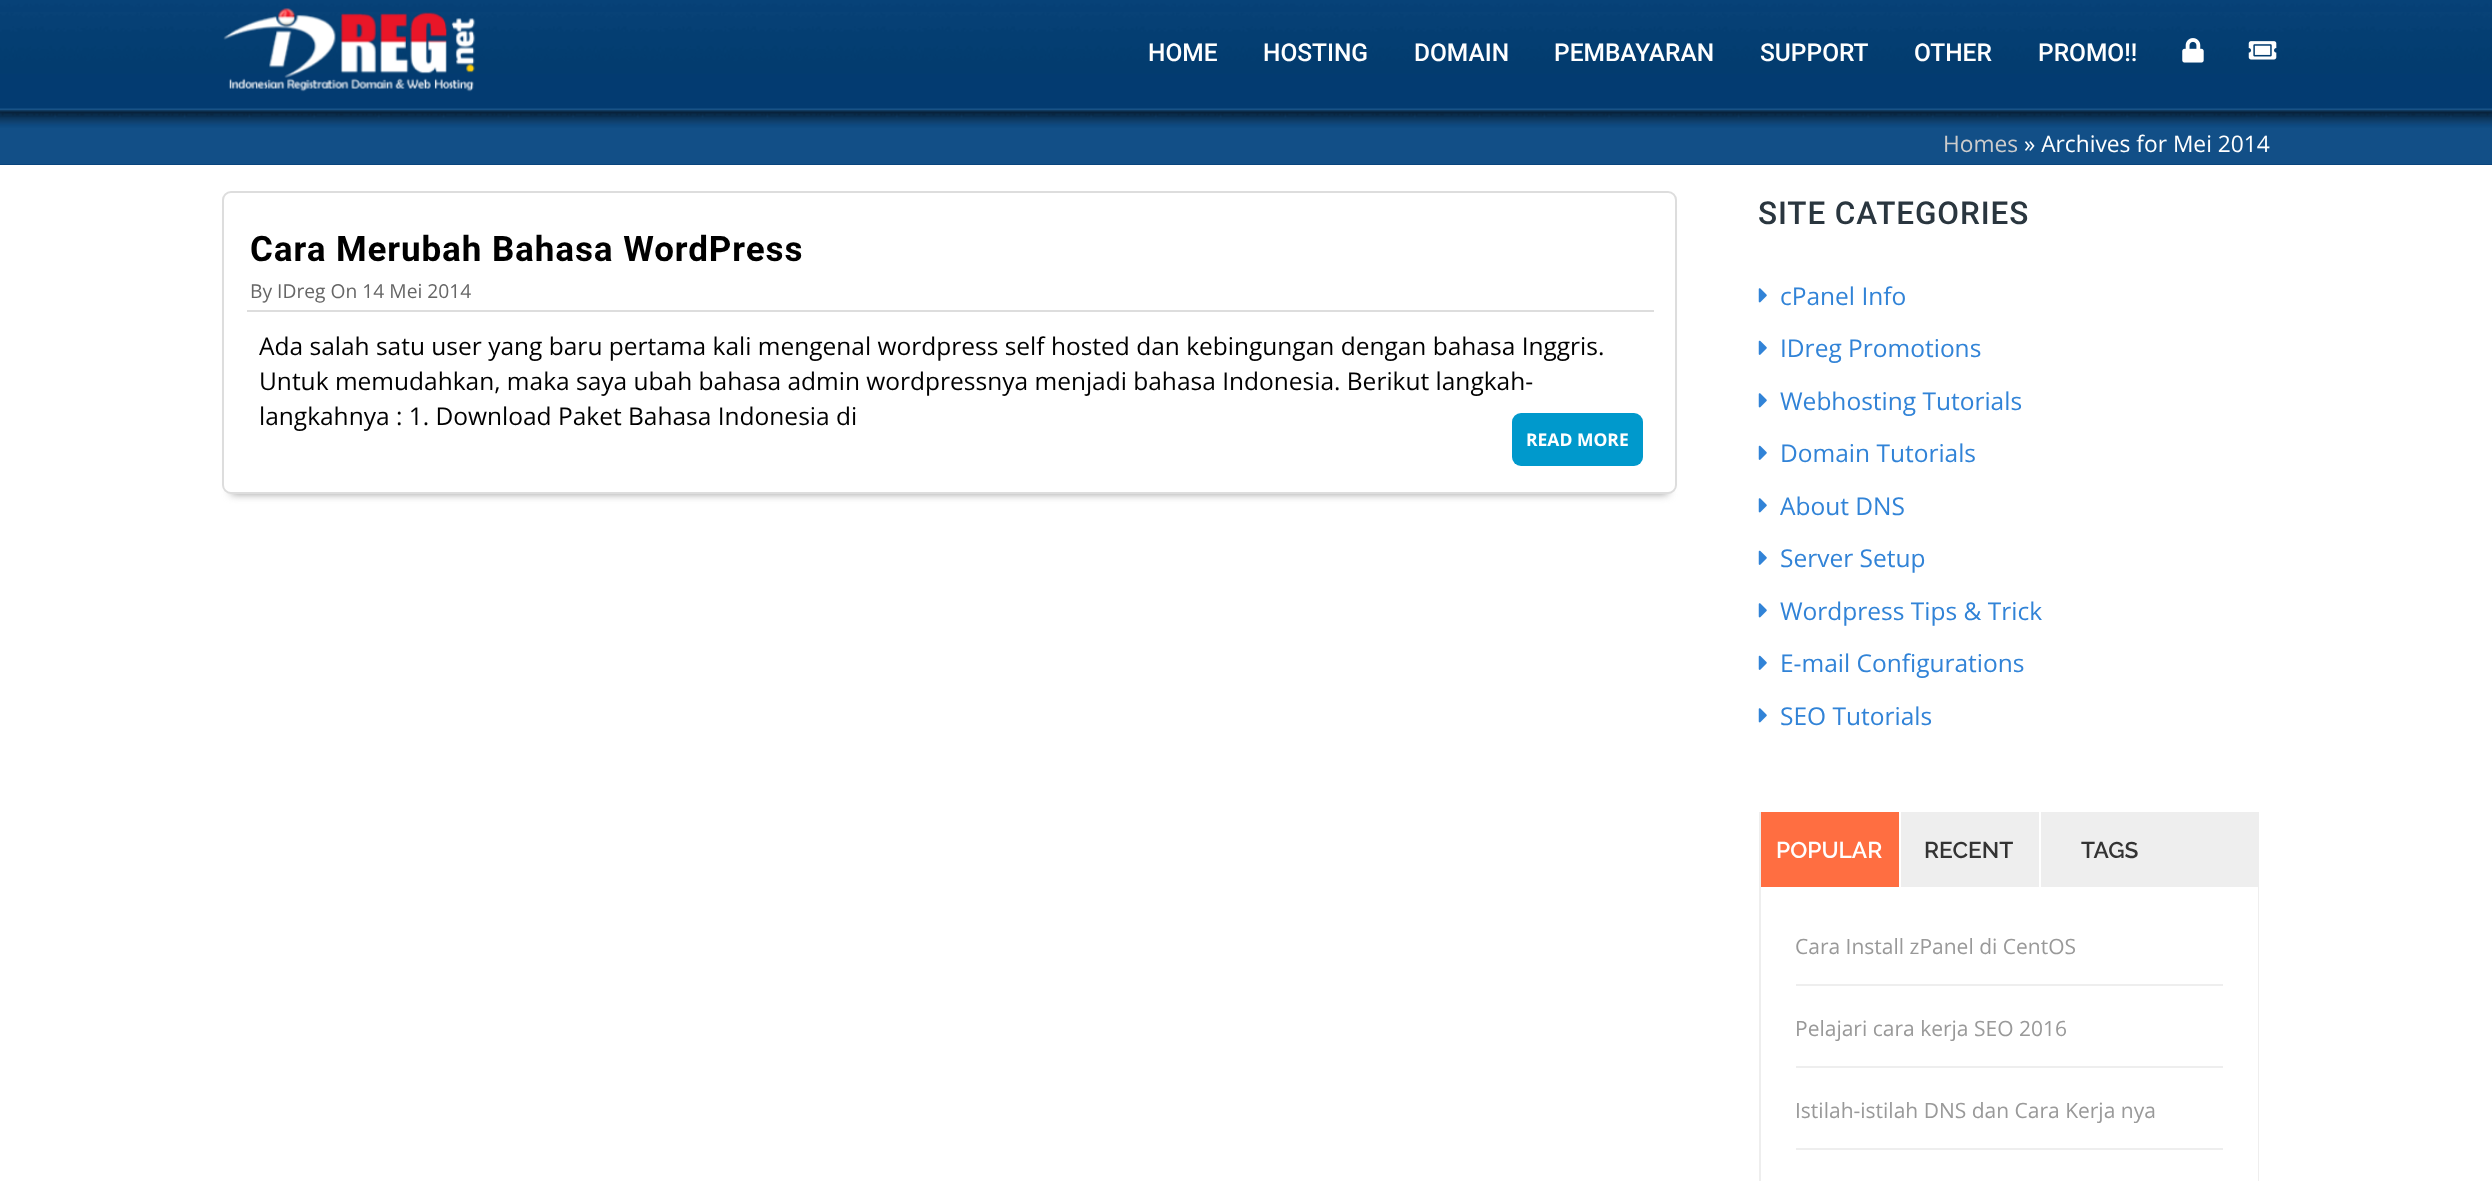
(async () => {
    const canvas = document.querySelector("canvas");
    canvas.width = 2492;
    canvas.height = 1181;
    const context = canvas.getContext("2d");
    context.miterLimit = 4;
    context.fontKerning = "normal";
    function write(s, x, y, font, color) {
        context.font = font;
        context.fillStyle = color;
        context.fillText(s, x, y);
    }
    function block(x, y, w, h, color) {
        context.fillStyle = color;
        context.fillRect(x, y, w, h);
    }
    function card(x, y, w, h, r, color) {
        context.fillStyle = color;
        context.beginPath();
        context.roundRect(x, y, w, h, r);
        context.fill();
    }
    async function photo(src, x, y, w, h) {
        const img = new Image();
        img.src = src;
        await img.decode();
        context.drawImage(img, x, y, w, h);
    }

    block(0, 0, 2492, 1181, "rgb(255, 255, 255)");
    block(0, 73, 2492, 92, "rgb(0, 56, 112)");
    await photo("media/4.png", 0, 0, 2492, 165);
    context.save();
    context.beginPath();
    context.rect(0, 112, 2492, 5);
    context.clip();
    context.fillStyle = "rgba(0, 0, 0, 0.2)";
    context.filter = "blur(2px)";
    context.beginPath();
    context.rect(0, 2, 2492, 112);
    context.fill();
    context.filter = "none";
    context.restore();
    block(0, 12, 2492, 100, "rgba(28, 90, 124, 0.1)");
    await photo("media/1.png", 223, 8, 253, 84);
    write("HOME", 1148, 61, "500 24.5px Roboto", "rgb(255, 255, 255)");
    write("HOSTING", 1263, 61, "500 24.5px Roboto", "rgb(255, 255, 255)");
    write("DOMAIN", 1414, 61, "500 24.5px Roboto", "rgb(255, 255, 255)");
    write("PEMBAYARAN", 1554, 61, "500 24.5px Roboto", "rgb(255, 255, 255)");
    write("SUPPORT", 1760, 61, "500 24.5px Roboto", "rgb(255, 255, 255)");
    write("OTHER", 1914, 61, "500 24.5px Roboto", "rgb(255, 255, 255)");
    write("PROMO!!", 2038, 61, "500 24.5px Roboto", "rgb(255, 255, 255)");
    await photo("media/2.png", 2182, 38, 22, 25);
    await photo("media/3.png", 2248, 41, 29, 19);
    write("Homes", 1943, 152, "22.75px Open Sans", "rgb(204, 204, 204)");
    write("» Archives for Mei 2014", 2024, 152, "22.75px Open Sans", "rgb(255, 255, 255)");
    context.fillStyle = "rgb(153, 153, 153)";
    context.filter = "blur(4.5px)";
    context.beginPath();
    context.rect(231, 208, 1437, 286);
    context.fill();
    context.filter = "none";
    context.fillStyle = "rgb(255, 255, 255)";
    context.beginPath();
    context.roundRect(223, 192, 1453, 301, 8);
    context.fill();
    context.strokeStyle = "rgb(221, 221, 221)";
    context.lineWidth = 2;
    context.stroke();
    context.letterSpacing = "0.9px";
    write("Cara Merubah Bahasa WordPress", 250, 261, "bold 35px Roboto", "rgb(0, 0, 0)");
    block(247, 310, 1407, 2, "rgb(221, 221, 221)");
    context.letterSpacing = "0px";
    write("By IDreg On 14 Mei 2014", 250, 298, "19.25px Open Sans", "rgb(102, 102, 102)");
    write("Ada salah satu user yang baru pertama kali mengenal wordpress self hosted dan kebingungan dengan bahasa Inggris.", 259, 355, "24.5px Open Sans", "rgb(0, 0, 0)");
    write("Untuk memudahkan, maka saya ubah bahasa admin wordpressnya menjadi bahasa Indonesia. Berikut langkah-", 259, 390, "24.5px Open Sans", "rgb(0, 0, 0)");
    write("langkahnya : 1. Download Paket Bahasa Indonesia di", 259, 425, "24.5px Open Sans", "rgb(0, 0, 0)");
    card(1512, 413, 131, 53, 9, "rgb(0, 153, 204)");
    write("READ MORE", 1526, 446, "bold 17.5px Open Sans", "rgb(255, 255, 255)");
    context.letterSpacing = "0.9px";
    write("SITE CATEGORIES", 1758, 224, "500 31.5px Roboto", "rgb(42, 54, 63)");
    await photo("media/5.png", 1758, 288, 9, 15);
    context.letterSpacing = "0px";
    write("cPanel Info", 1780, 305, "24.5px Open Sans", "rgb(49, 131, 215)");
    await photo("media/6.png", 1758, 340, 9, 15);
    write("IDreg Promotions", 1780, 357, "24.5px Open Sans", "rgb(49, 131, 215)");
    await photo("media/5.png", 1758, 393, 9, 15);
    write("Webhosting Tutorials", 1780, 410, "24.5px Open Sans", "rgb(49, 131, 215)");
    await photo("media/6.png", 1758, 445, 9, 15);
    write("Domain Tutorials", 1780, 462, "24.5px Open Sans", "rgb(49, 131, 215)");
    await photo("media/5.png", 1758, 498, 9, 15);
    write("About DNS", 1780, 515, "24.5px Open Sans", "rgb(49, 131, 215)");
    await photo("media/6.png", 1758, 550, 9, 15);
    write("Server Setup", 1780, 567, "24.5px Open Sans", "rgb(49, 131, 215)");
    await photo("media/5.png", 1758, 603, 9, 15);
    write("Wordpress Tips & Trick", 1780, 620, "24.5px Open Sans", "rgb(49, 131, 215)");
    await photo("media/6.png", 1758, 655, 9, 15);
    write("E-mail Configurations", 1780, 672, "24.5px Open Sans", "rgb(49, 131, 215)");
    await photo("media/5.png", 1758, 708, 9, 15);
    write("SEO Tutorials", 1780, 725, "24.5px Open Sans", "rgb(49, 131, 215)");
    block(1759, 812, 500, 369, "rgb(238, 238, 238)");
    block(1761, 812, 138, 75, "rgb(255, 110, 65)");
    block(1899, 812, 2, 75, "rgb(255, 255, 255)");
    write("POPULAR", 1776, 858, "600 22.75px Raleway", "rgb(255, 255, 255)");
    block(2039, 812, 2, 75, "rgb(255, 255, 255)");
    write("RECENT", 1924, 858, "600 22.75px Raleway", "rgb(51, 51, 51)");
    write("TAGS", 2081, 858, "600 22.75px Raleway", "rgb(51, 51, 51)");
    block(1761, 887, 497, 294, "rgb(255, 255, 255)");
    block(1796, 984, 427, 2, "rgb(238, 238, 238)");
    write("Cara Install zPanel di CentOS", 1795, 954, "21px Open Sans", "rgb(153, 153, 153)");
    block(1796, 1066, 427, 2, "rgb(238, 238, 238)");
    write("Pelajari cara kerja SEO 2016", 1795, 1036, "21px Open Sans", "rgb(153, 153, 153)");
    block(1796, 1148, 427, 2, "rgb(238, 238, 238)");
    write("Istilah-istilah DNS dan Cara Kerja nya", 1795, 1118, "21px Open Sans", "rgb(153, 153, 153)");
})();
